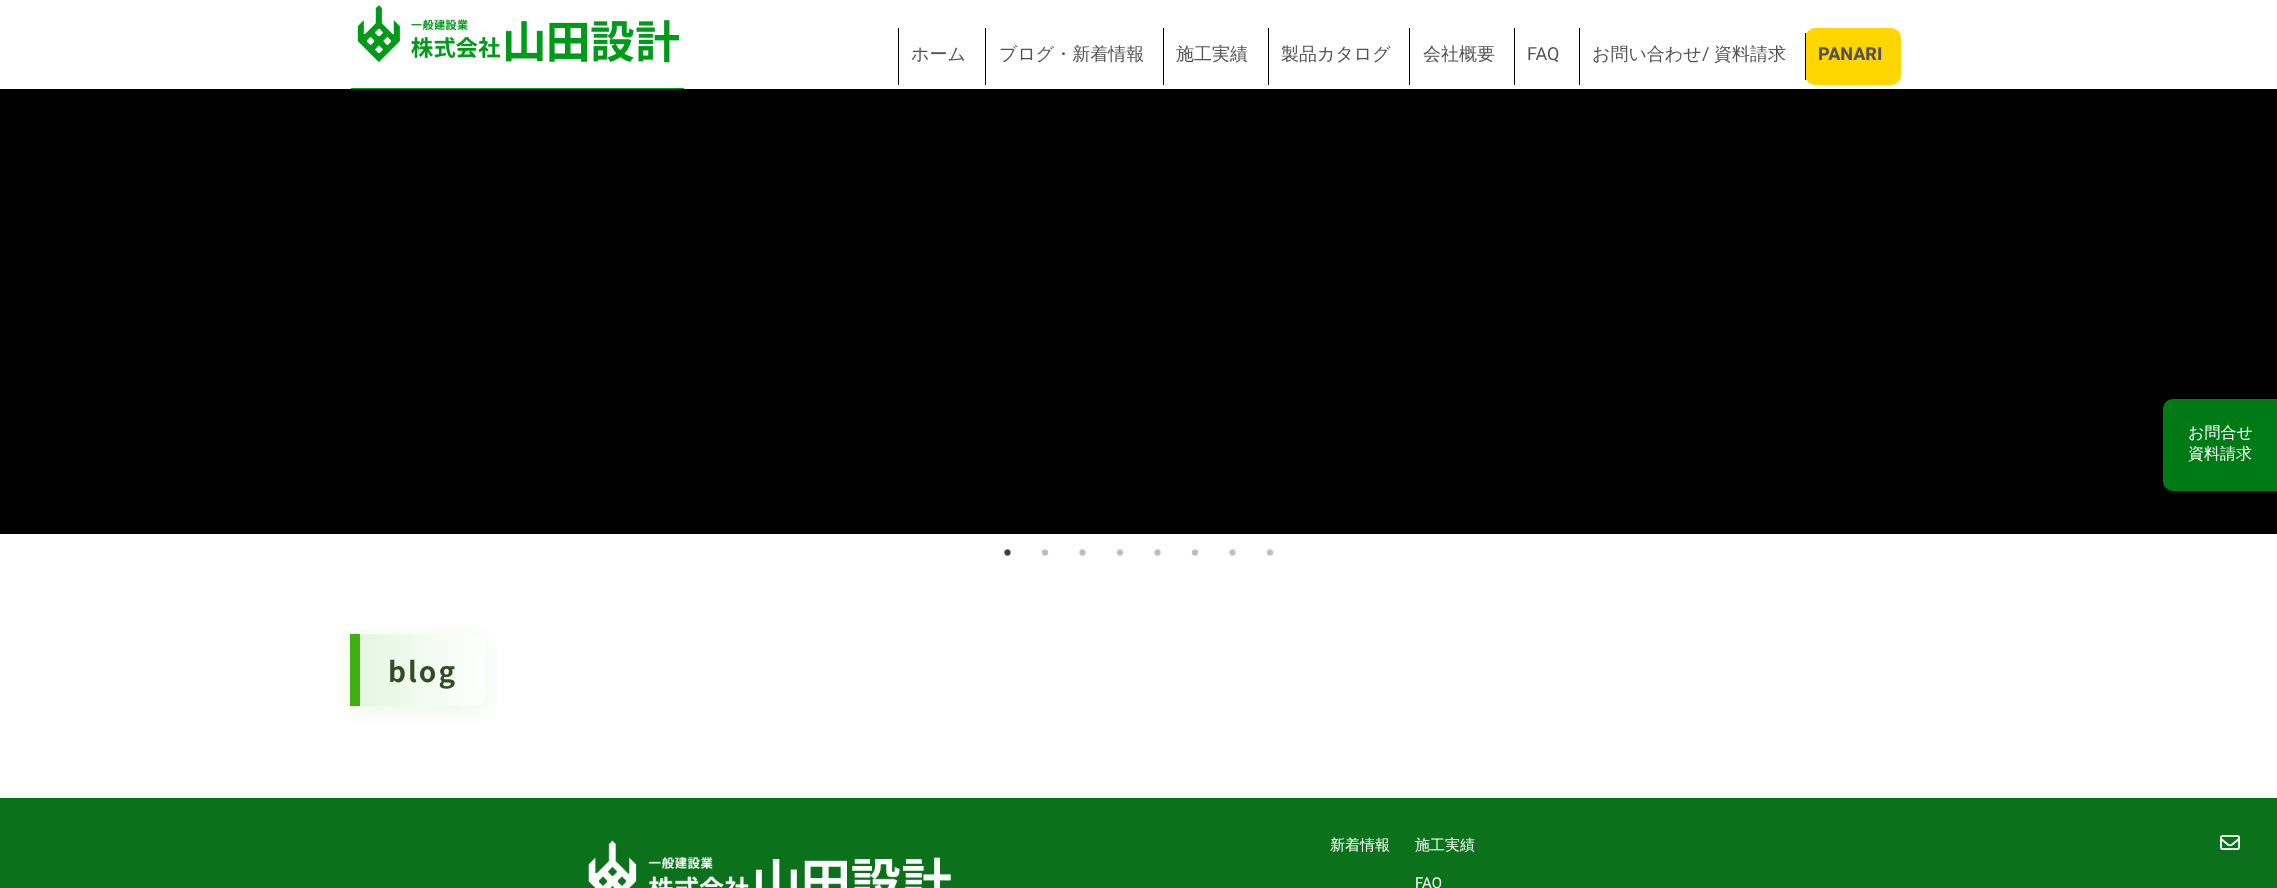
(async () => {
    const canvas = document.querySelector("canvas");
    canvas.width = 2277;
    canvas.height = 888;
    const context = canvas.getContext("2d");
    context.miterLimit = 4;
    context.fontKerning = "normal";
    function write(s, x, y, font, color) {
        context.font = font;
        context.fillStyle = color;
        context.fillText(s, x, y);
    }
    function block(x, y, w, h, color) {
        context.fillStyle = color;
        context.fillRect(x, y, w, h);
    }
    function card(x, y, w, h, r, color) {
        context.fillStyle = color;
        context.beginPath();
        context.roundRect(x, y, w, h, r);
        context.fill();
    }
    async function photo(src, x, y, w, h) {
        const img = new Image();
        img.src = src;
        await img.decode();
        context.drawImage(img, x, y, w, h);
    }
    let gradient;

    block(0, 0, 2277, 888, "rgb(255, 255, 255)");
    block(351, 88, 333, 1, "rgb(6, 156, 30)");
    await photo("media/1.png", 357, 5, 322, 58);
    block(898, 28, 1, 57, "rgb(0, 0, 0)");
    write("ホーム", 911, 60, "500 18px WenQuanYi Zen Hei", "rgb(83, 83, 83)");
    block(985, 28, 1, 57, "rgb(0, 0, 0)");
    write("ブログ・新着情報", 999, 60, "500 18px WenQuanYi Zen Hei", "rgb(83, 83, 83)");
    block(1163, 28, 1, 57, "rgb(0, 0, 0)");
    write("施工実績", 1176, 60, "500 18px WenQuanYi Zen Hei", "rgb(83, 83, 83)");
    block(1268, 28, 1, 57, "rgb(0, 0, 0)");
    write("製品カタログ", 1281, 60, "500 18px WenQuanYi Zen Hei", "rgb(83, 83, 83)");
    block(1409, 28, 1, 57, "rgb(0, 0, 0)");
    write("会社概要", 1423, 60, "500 18px WenQuanYi Zen Hei", "rgb(83, 83, 83)");
    block(1514, 28, 1, 57, "rgb(0, 0, 0)");
    write("FAQ", 1527, 60, "18px Roboto", "rgb(83, 83, 83)");
    block(1579, 28, 1, 57, "rgb(0, 0, 0)");
    write("お問い合わせ", 1592, 60, "500 18px WenQuanYi Zen Hei", "rgb(83, 83, 83)");
    write("/", 1702, 60, "18px Roboto", "rgb(83, 83, 83)");
    write("資料請求", 1714, 60, "500 18px WenQuanYi Zen Hei", "rgb(83, 83, 83)");
    card(1805, 28, 96, 57, 10, "rgb(255, 214, 0)");
    block(1805, 33, 1, 47, "rgb(0, 0, 0)");
    write("PANARI", 1818, 60, "800 18px Roboto", "rgb(83, 83, 83)");
    block(0, 89, 2277, 445, "rgb(0, 0, 0)");
    await photo("media/2.png", 1004, 549, 7, 7);
    await photo("media/3.png", 1041, 549, 8, 7);
    await photo("media/4.png", 1079, 549, 7, 7);
    await photo("media/3.png", 1116, 549, 8, 7);
    await photo("media/4.png", 1154, 549, 7, 7);
    await photo("media/3.png", 1191, 549, 8, 7);
    await photo("media/4.png", 1229, 549, 7, 7);
    await photo("media/3.png", 1266, 549, 8, 7);
    context.fillStyle = "rgba(62, 175, 14, 0.1)";
    context.filter = "blur(10px)";
    context.beginPath();
    context.roundRect(350, 639, 135, 72, 10);
    context.fill();
    context.filter = "none";
    gradient = context.createLinearGradient(360, 670, 485, 670);
    gradient.addColorStop(0, "rgb(228, 246, 225)");
    gradient.addColorStop(1, "rgb(255, 255, 255)");
    context.fillStyle = gradient;
    context.beginPath();
    context.roundRect(360, 634, 125, 72, [0, 10, 10, 0]);
    context.fill();
    block(350, 634, 10, 72, "rgb(62, 175, 14)");
    context.letterSpacing = "2px";
    write("blog", 388, 682, "bold 28px Noto Sans JP", "rgb(52, 77, 36)");
    block(0, 798, 2277, 90, "rgb(11, 114, 27)");
    await photo("media/5.png", 588, 840, 363, 48);
    context.letterSpacing = "0px";
    write("新着情報", 1330, 850, "500 15px WenQuanYi Zen Hei", "rgb(255, 255, 255)");
    write("施工実績", 1415, 850, "500 15px WenQuanYi Zen Hei", "rgb(255, 255, 255)");
    write("FAQ", 1415, 888, "15px Roboto", "rgb(255, 255, 255)");
    context.fillStyle = "rgb(0, 122, 20)";
    context.beginPath();
    context.moveTo(2173, 399);
    context.lineTo(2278, 399);
    context.lineTo(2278, 491);
    context.lineTo(2173, 491);
    context.bezierCurveTo(2167.5, 491, 2163, 486.5, 2163, 481);
    context.lineTo(2163, 409);
    context.bezierCurveTo(2163, 403.5, 2167.5, 399, 2173, 399);
    context.closePath();
    context.fill();
    write("お問合せ", 2188, 438, "500 16px WenQuanYi Zen Hei", "rgb(255, 255, 255)");
    write("資料請求", 2188, 459, "500 16px WenQuanYi Zen Hei", "rgb(255, 255, 255)");
    await photo("media/6.png", 2220, 835, 20, 15);
})();
